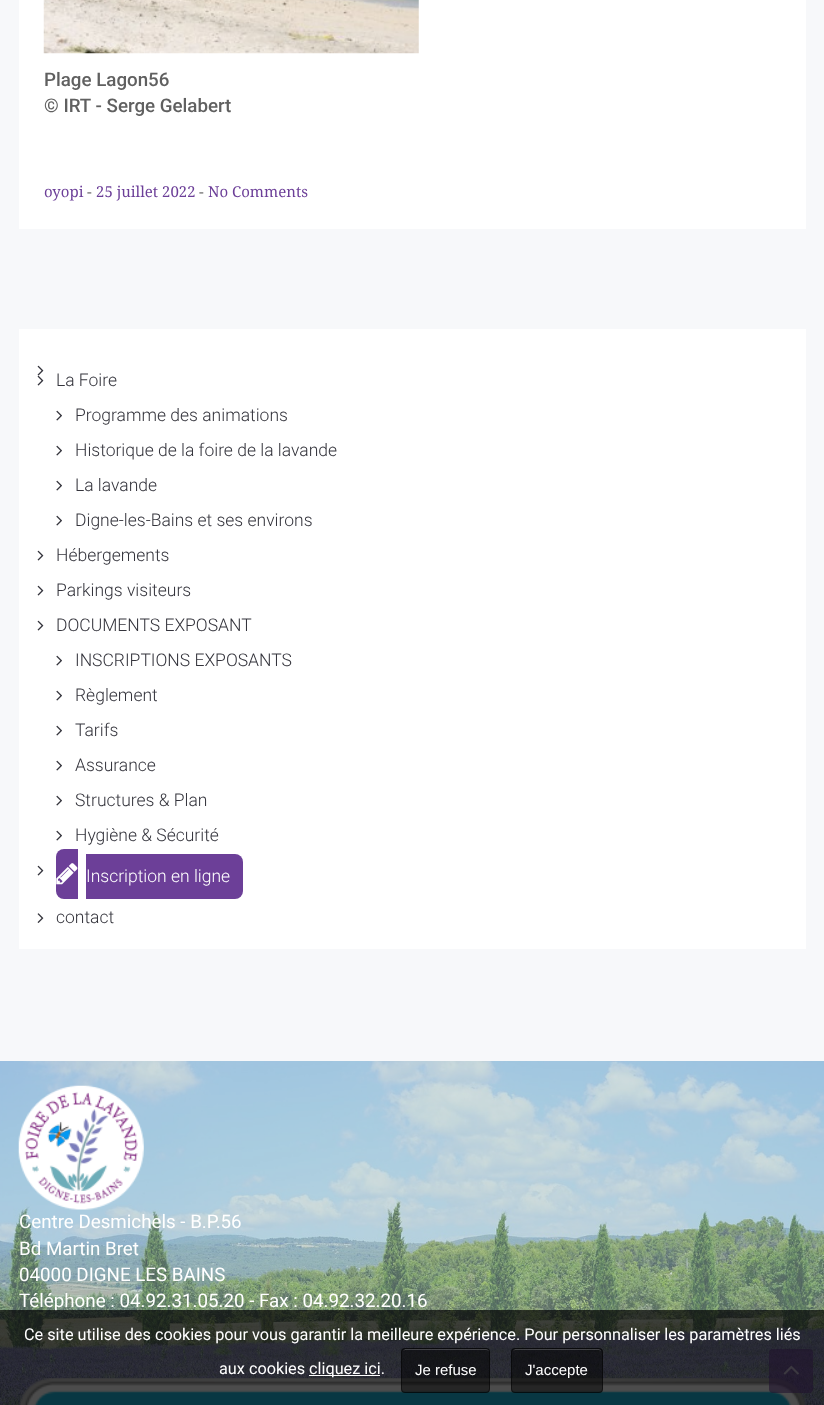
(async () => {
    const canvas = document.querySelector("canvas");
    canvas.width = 824;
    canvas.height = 1405;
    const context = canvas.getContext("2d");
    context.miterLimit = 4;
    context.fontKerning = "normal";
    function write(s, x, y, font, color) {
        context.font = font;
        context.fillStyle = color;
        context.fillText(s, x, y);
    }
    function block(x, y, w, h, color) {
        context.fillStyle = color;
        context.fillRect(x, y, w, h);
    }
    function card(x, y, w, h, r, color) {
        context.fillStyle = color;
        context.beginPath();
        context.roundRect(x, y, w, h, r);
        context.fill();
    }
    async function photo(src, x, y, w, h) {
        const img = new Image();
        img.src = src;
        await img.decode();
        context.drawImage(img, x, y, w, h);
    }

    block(0, 0, 824, 1405, "rgb(247, 248, 250)");
    block(19, 0, 787, 229, "rgb(255, 255, 255)");
    await photo("media/1.png", 43, 0, 376, 54);
    write("Plage Lagon56", 44, 86, "500 18.75px Roboto", "rgb(96, 96, 96)");
    write("© IRT - Serge Gelabert", 44, 112, "500 18.75px Roboto", "rgb(96, 96, 96)");
    write("oyopi", 44, 197, "15px Droid Serif", "rgb(108, 63, 152)");
    write("-", 87, 197, "15px Droid Serif", "rgb(96, 96, 96)");
    write("25 juillet 2022", 96, 197, "15px Droid Serif", "rgb(108, 63, 152)");
    write("-", 199, 197, "15px Droid Serif", "rgb(96, 96, 96)");
    write("No Comments", 208, 197, "15px Droid Serif", "rgb(108, 63, 152)");
    block(19, 329, 787, 620, "rgb(255, 255, 255)");
    await photo("media/2.png", 37, 365, 7, 11);
    await photo("media/3.png", 37, 375, 7, 11);
    write("La Foire", 56, 386, "300 17.5px Roboto", "rgb(52, 52, 60)");
    await photo("media/4.png", 56, 410, 6, 11);
    write("Programme des animations", 75, 421, "300 17.5px Roboto", "rgb(52, 52, 60)");
    await photo("media/4.png", 56, 445, 6, 11);
    write("Historique de la foire de la lavande", 75, 456, "300 17.5px Roboto", "rgb(52, 52, 60)");
    await photo("media/4.png", 56, 480, 6, 11);
    write("La lavande", 75, 491, "300 17.5px Roboto", "rgb(52, 52, 60)");
    await photo("media/4.png", 56, 515, 6, 11);
    write("Digne-les-Bains et ses environs", 75, 526, "300 17.5px Roboto", "rgb(52, 52, 60)");
    await photo("media/2.png", 37, 550, 7, 11);
    write("Hébergements", 56, 561, "300 17.5px Roboto", "rgb(52, 52, 60)");
    await photo("media/2.png", 37, 585, 7, 11);
    write("Parkings visiteurs", 56, 596, "300 17.5px Roboto", "rgb(52, 52, 60)");
    await photo("media/2.png", 37, 620, 7, 11);
    write("DOCUMENTS EXPOSANT", 56, 631, "300 17.5px Roboto", "rgb(52, 52, 60)");
    await photo("media/4.png", 56, 655, 6, 11);
    write("INSCRIPTIONS EXPOSANTS", 75, 666, "300 17.5px Roboto", "rgb(52, 52, 60)");
    await photo("media/4.png", 56, 690, 6, 11);
    write("Règlement", 75, 701, "300 17.5px Roboto", "rgb(52, 52, 60)");
    await photo("media/4.png", 56, 725, 6, 11);
    write("Tarifs", 75, 736, "300 17.5px Roboto", "rgb(52, 52, 60)");
    await photo("media/4.png", 56, 760, 6, 11);
    write("Assurance", 75, 771, "300 17.5px Roboto", "rgb(52, 52, 60)");
    await photo("media/4.png", 56, 795, 6, 11);
    write("Structures & Plan", 75, 806, "300 17.5px Roboto", "rgb(52, 52, 60)");
    await photo("media/4.png", 56, 830, 6, 11);
    write("Hygiène & Sécurité", 75, 841, "300 17.5px Roboto", "rgb(52, 52, 60)");
    await photo("media/2.png", 37, 865, 7, 11);
    context.fillStyle = "rgb(108, 63, 152)";
    context.beginPath();
    context.roundRect(56, 849, 22, 50, [8, 0, 0, 8]);
    context.fill();
    context.beginPath();
    context.roundRect(86, 854, 157, 45, [0, 8, 8, 0]);
    context.fill();
    await photo("media/5.png", 56, 863, 22, 22);
    write("Inscription en ligne", 86, 882, "300 17.5px Roboto", "rgb(255, 255, 255)");
    await photo("media/6.png", 37, 913, 7, 10);
    write("contact", 56, 923, "300 17.5px Roboto", "rgb(52, 52, 60)");
    block(0, 1061, 824, 344, "rgb(164, 192, 193)");
    await photo("media/7.png", 0, 1061, 824, 344);
    await photo("media/8.png", 18, 1085, 126, 125);
    write("Centre Desmichels - B.P.56", 19, 1228, "18.75px Roboto", "rgb(255, 255, 255)");
    write("Bd Martin Bret", 19, 1255, "18.75px Roboto", "rgb(255, 255, 255)");
    write("04000 DIGNE LES BAINS", 19, 1281, "18.75px Roboto", "rgb(255, 255, 255)");
    write("Téléphone : 04.92.31.05.20 - Fax : 04.92.32.20.16", 19, 1307, "18.75px Roboto", "rgb(255, 255, 255)");
    await photo("media/9.png", 18, 1378, 788, 27);
    card(769, 1349, 44, 44, 4, "rgba(108, 63, 152, 0.6)");
    await photo("media/10.png", 783, 1365, 16, 10);
    block(0, 1310, 824, 95, "rgba(0, 0, 0, 0.7)");
    write("Ce site utilise des cookies pour vous garantir la meilleure expérience. Pour personnaliser les paramètres liés", 24, 1340, "16.25px Roboto", "rgb(255, 255, 255)");
    write("aux cookies", 219, 1374, "16.25px Roboto", "rgb(255, 255, 255)");
    block(309, 1375, 71, 1, "rgb(255, 255, 255)");
    write("cliquez ici.", 309, 1374, "16.25px Roboto", "rgb(255, 255, 255)");
    card(401, 1348, 89, 45, 4, "rgba(0, 0, 0, 0.5)");
    context.fillStyle = "rgba(255, 255, 255, 0.2)";
    context.beginPath();
    context.moveTo(405, 1350);
    context.lineTo(486, 1350);
    context.bezierCurveTo(488, 1350, 489, 1351, 489, 1352);
    context.bezierCurveTo(489, 1351, 489, 1350, 487, 1349);
    context.lineTo(405, 1349);
    context.lineTo(403, 1351);
    context.closePath();
    context.fill();
    context.beginPath();
    context.roundRect(401.5, 1348.5, 88, 44, 3.5);
    context.strokeStyle = "rgba(0, 0, 0, 0.5)";
    context.stroke();
    write("Je refuse", 415, 1375, "15px Liberation Sans", "rgb(255, 255, 255)");
    card(511, 1348, 92, 45, 4, "rgba(0, 0, 0, 0.5)");
    context.fillStyle = "rgba(255, 255, 255, 0.2)";
    context.beginPath();
    context.moveTo(515, 1350);
    context.lineTo(599, 1350);
    context.bezierCurveTo(600, 1350, 601, 1351, 601, 1352);
    context.bezierCurveTo(601, 1351, 601, 1350, 599, 1349);
    context.lineTo(515, 1349);
    context.lineTo(513, 1351);
    context.closePath();
    context.fill();
    context.beginPath();
    context.roundRect(511.5, 1348.5, 91, 44, 3.5);
    context.stroke();
    write("J'accepte", 525, 1375, "15px Liberation Sans", "rgb(255, 255, 255)");
})();
